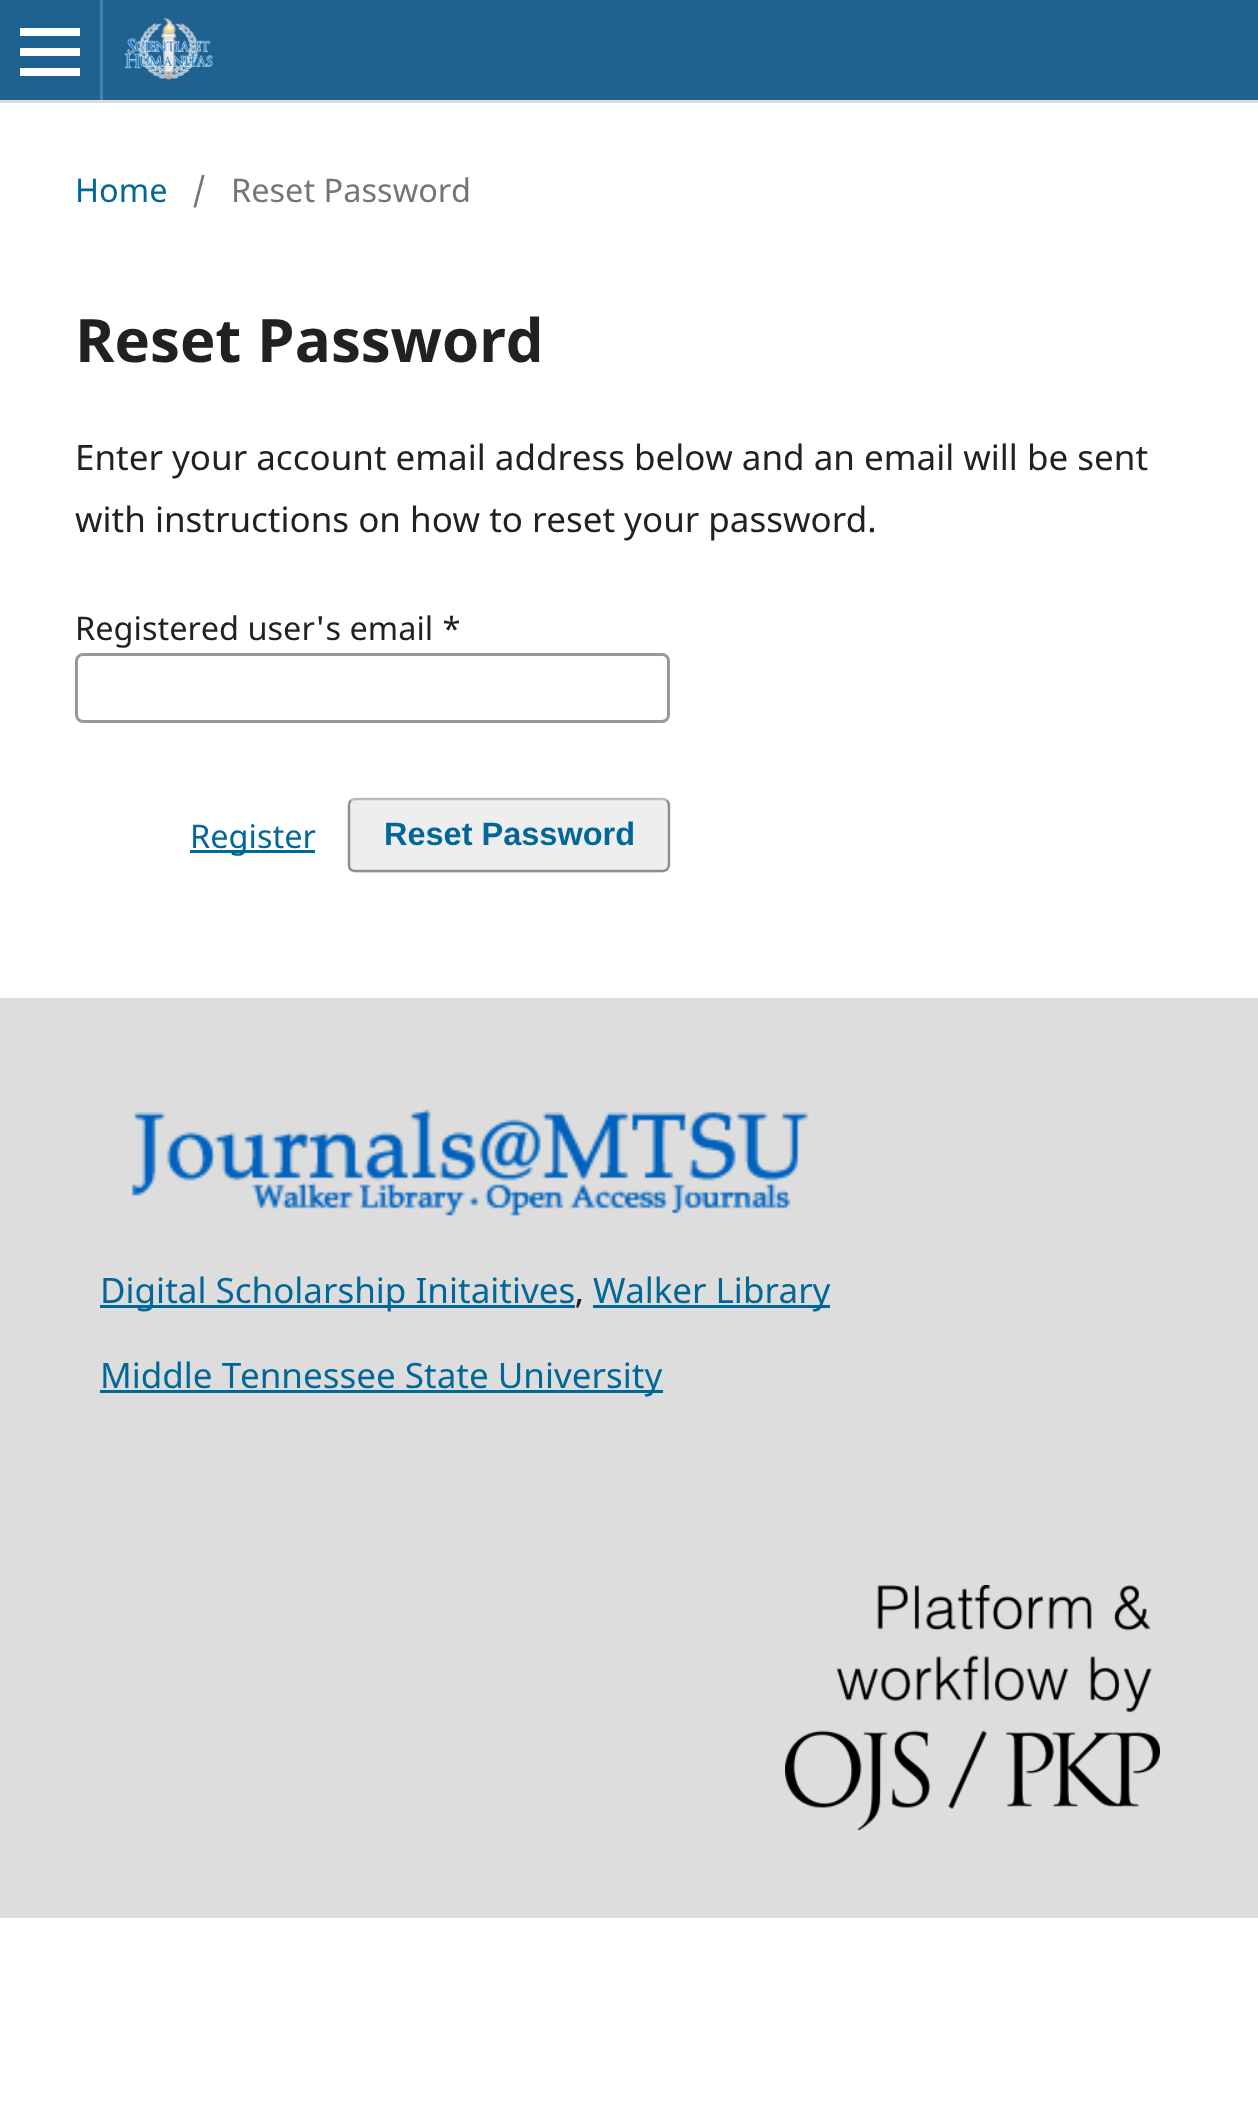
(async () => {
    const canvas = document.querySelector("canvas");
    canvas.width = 1258;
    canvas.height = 2108;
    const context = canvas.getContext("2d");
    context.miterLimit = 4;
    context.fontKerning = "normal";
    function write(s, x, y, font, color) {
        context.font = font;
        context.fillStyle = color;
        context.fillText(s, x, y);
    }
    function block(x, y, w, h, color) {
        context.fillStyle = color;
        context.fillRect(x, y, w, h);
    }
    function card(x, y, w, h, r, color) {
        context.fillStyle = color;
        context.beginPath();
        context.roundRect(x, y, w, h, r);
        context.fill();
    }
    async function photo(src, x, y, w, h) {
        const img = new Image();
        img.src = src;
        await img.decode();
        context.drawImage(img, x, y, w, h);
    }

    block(0, 0, 1258, 2108, "rgb(255, 255, 255)");
    block(0, 0, 1258, 100, "rgb(30, 98, 146)");
    block(0, 100, 1258, 3, "rgb(221, 221, 221)");
    block(100, 0, 3, 100, "rgb(75, 129, 168)");
    block(20, 68, 60, 8, "rgb(255, 255, 255)");
    block(20, 28, 60, 8, "rgb(255, 255, 255)");
    block(20, 48, 60, 8, "rgb(255, 255, 255)");
    await photo("media/1.png", 125, 12, 88, 76);
    write("Home", 75, 202, "32.5px Noto Sans", "rgb(0, 103, 152)");
    write("/", 192, 202, "32.5px Noto Sans", "rgb(117, 117, 117)");
    write("Reset Password", 231, 202, "32.5px Noto Sans", "rgb(117, 117, 117)");
    write("Reset Password", 75, 362, "bold 60px Noto Sans", "rgb(33, 33, 33)");
    write("Enter your account email address below and an email will be sent", 75, 470, "35px Noto Sans", "rgb(33, 33, 33)");
    write("with instructions on how to reset your password.", 75, 532, "35px Noto Sans", "rgb(33, 33, 33)");
    write("Registered user's email *", 75, 640, "32.5px Noto Sans", "rgb(33, 33, 33)");
    context.beginPath();
    context.roundRect(76.5, 654.5, 592, 67, 6.5);
    context.strokeStyle = "rgb(153, 153, 153)";
    context.lineWidth = 3;
    context.stroke();
    block(190, 850, 125, 3, "rgb(0, 103, 152)");
    write("Register", 190, 848, "32.5px Noto Sans", "rgb(0, 103, 152)");
    card(348, 798, 322, 75, 8, "rgb(238, 238, 238)");
    context.beginPath();
    context.moveTo(350.5, 800.5);
    context.bezierCurveTo(352, 799.5, 353.5, 799, 355, 799);
    context.lineTo(662.5, 799);
    context.bezierCurveTo(664, 799, 665.5, 799.5, 667, 800.5);
    context.strokeStyle = "rgb(187, 187, 187)";
    context.lineWidth = 2.5;
    context.stroke();
    context.beginPath();
    context.moveTo(667, 800.5);
    context.bezierCurveTo(668, 802, 669, 803.5, 669, 805);
    context.lineTo(669, 865);
    context.bezierCurveTo(669, 866.5, 668, 868, 667, 869.5);
    context.bezierCurveTo(665.5, 870.5, 664, 871, 662.5, 871);
    context.lineTo(355, 871);
    context.bezierCurveTo(353.5, 871, 352, 870.5, 350.5, 869.5);
    context.bezierCurveTo(349.5, 868, 349, 866.5, 349, 865);
    context.lineTo(349, 805);
    context.bezierCurveTo(349, 803.5, 349.5, 802, 350.5, 800.5);
    context.strokeStyle = "rgba(0, 0, 0, 0.4)";
    context.stroke();
    write("Reset Password", 384, 845, "bold 32.5px Liberation Sans", "rgb(0, 103, 152)");
    block(0, 998, 1258, 920, "rgb(221, 221, 221)");
    await photo("media/2.png", 131, 1109, 678, 107);
    block(100, 1305, 475, 3, "rgb(0, 103, 152)");
    write("Digital Scholarship Initaitives", 100, 1303, "35px Noto Sans", "rgb(0, 103, 152)");
    write(",", 575, 1303, "35px Noto Sans", "rgb(33, 33, 33)");
    block(593, 1305, 237, 3, "rgb(0, 103, 152)");
    write("Walker Library", 593, 1303, "35px Noto Sans", "rgb(0, 103, 152)");
    block(100, 1390, 563, 3, "rgb(0, 103, 152)");
    write("Middle Tennessee State University", 100, 1388, "35px Noto Sans", "rgb(0, 103, 152)");
    await photo("media/3.png", 785, 1585, 375, 245);
})();
